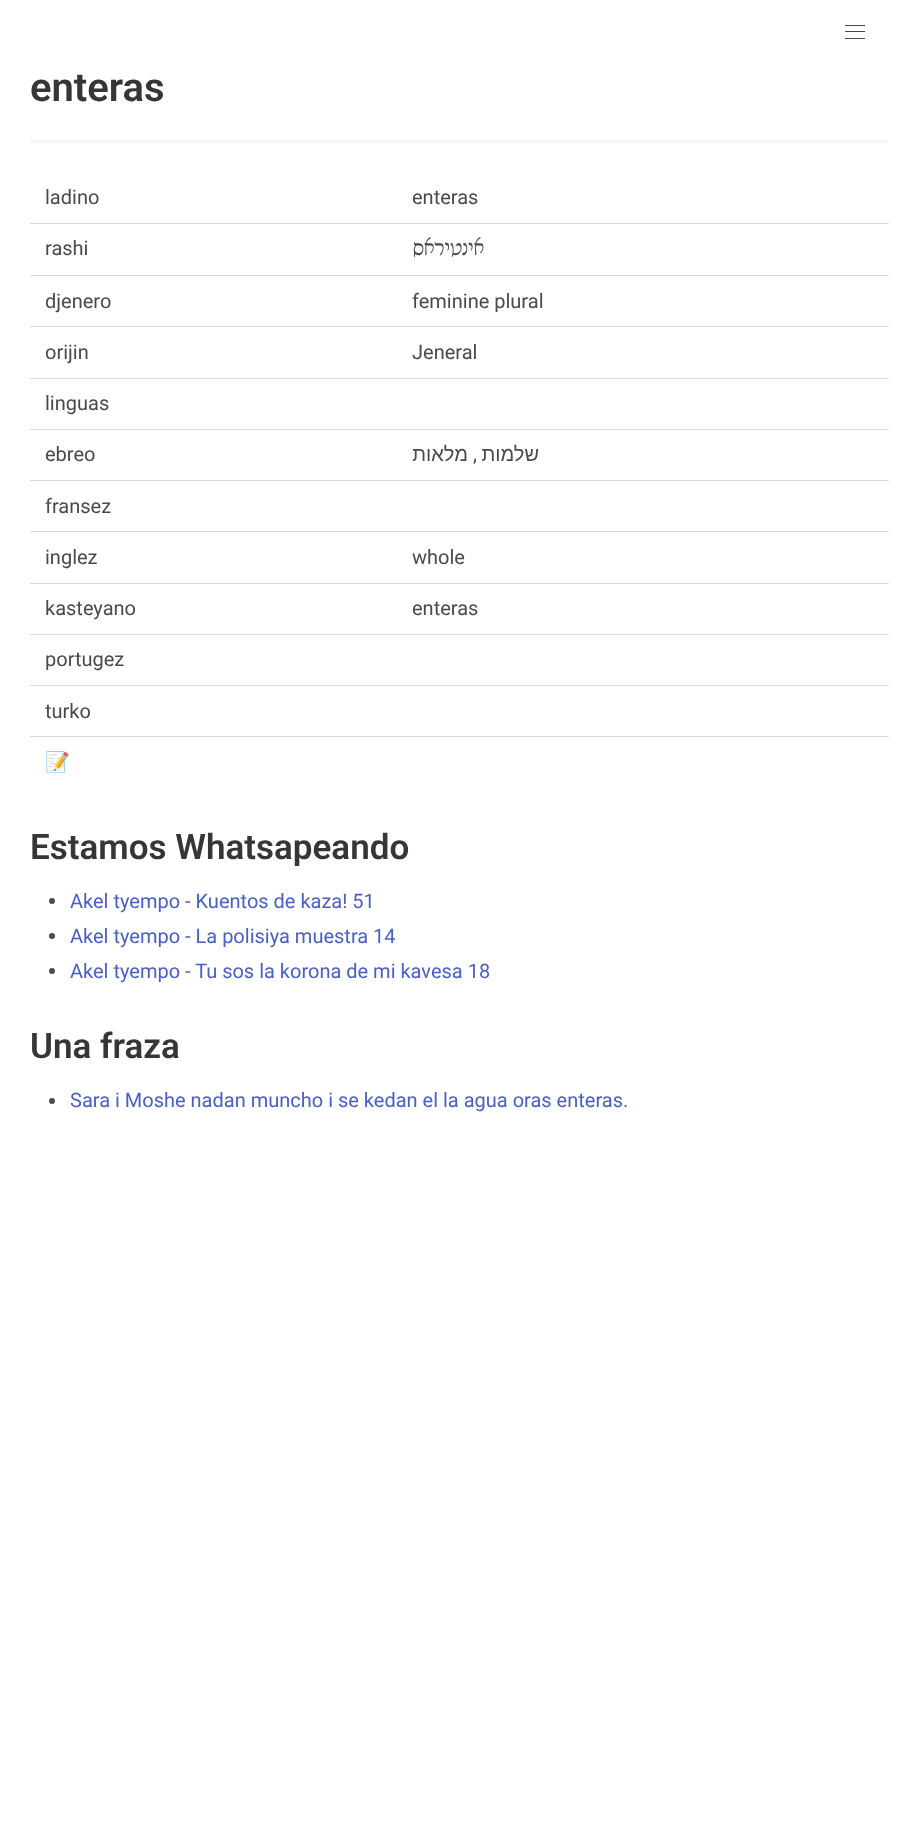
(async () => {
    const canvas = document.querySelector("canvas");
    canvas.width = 917;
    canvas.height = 1843;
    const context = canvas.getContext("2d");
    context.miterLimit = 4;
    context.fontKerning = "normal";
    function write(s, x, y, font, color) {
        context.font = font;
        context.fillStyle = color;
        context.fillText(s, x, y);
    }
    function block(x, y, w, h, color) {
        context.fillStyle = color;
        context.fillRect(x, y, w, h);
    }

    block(0, 0, 917, 1843, "rgb(255, 255, 255)");
    block(845, 25, 20, 1, "rgb(74, 74, 74)");
    block(845, 31, 20, 1, "rgb(74, 74, 74)");
    block(845, 38, 20, 1, "rgb(74, 74, 74)");
    write("enteras", 30, 101, "600 40px Roboto", "rgb(54, 54, 54)");
    block(30, 140, 858, 3, "rgb(245, 245, 245)");
    write("ladino", 45, 204, "20px Roboto", "rgb(74, 74, 74)");
    block(30, 223, 859, 1, "rgb(219, 219, 219)");
    write("enteras", 412, 204, "20px Roboto", "rgb(74, 74, 74)");
    write("rashi", 45, 255, "20px Roboto", "rgb(74, 74, 74)");
    block(30, 275, 859, 1, "rgb(219, 219, 219)");
    context.direction = "rtl";
    write("אינטיראס", 484, 255, "20px Noto Rashi Hebrew", "rgb(74, 74, 74)");
    context.direction = "ltr";
    write("djenero", 45, 308, "20px Roboto", "rgb(74, 74, 74)");
    block(30, 326, 859, 1, "rgb(219, 219, 219)");
    write("feminine plural", 412, 308, "20px Roboto", "rgb(74, 74, 74)");
    write("orijin", 45, 359, "20px Roboto", "rgb(74, 74, 74)");
    block(30, 378, 859, 1, "rgb(219, 219, 219)");
    write("Jeneral", 412, 359, "20px Roboto", "rgb(74, 74, 74)");
    write("linguas", 45, 410, "20px Roboto", "rgb(74, 74, 74)");
    block(30, 429, 859, 1, "rgb(219, 219, 219)");
    write("ebreo", 45, 461, "20px Roboto", "rgb(74, 74, 74)");
    block(30, 480, 859, 1, "rgb(219, 219, 219)");
    context.direction = "rtl";
    write("מלאות", 468, 461, "20px Liberation Sans", "rgb(74, 74, 74)");
    write(",", 477, 461, "20px Roboto", "rgb(74, 74, 74)");
    write("שלמות", 539, 461, "20px Liberation Sans", "rgb(74, 74, 74)");
    context.direction = "ltr";
    write("fransez", 45, 513, "20px Roboto", "rgb(74, 74, 74)");
    block(30, 531, 859, 1, "rgb(219, 219, 219)");
    write("inglez", 45, 564, "20px Roboto", "rgb(74, 74, 74)");
    block(30, 583, 859, 1, "rgb(219, 219, 219)");
    write("whole", 412, 564, "20px Roboto", "rgb(74, 74, 74)");
    write("kasteyano", 45, 615, "20px Roboto", "rgb(74, 74, 74)");
    block(30, 634, 859, 1, "rgb(219, 219, 219)");
    write("enteras", 412, 615, "20px Roboto", "rgb(74, 74, 74)");
    write("portugez", 45, 666, "20px Roboto", "rgb(74, 74, 74)");
    block(30, 685, 859, 1, "rgb(219, 219, 219)");
    write("turko", 45, 718, "20px Roboto", "rgb(74, 74, 74)");
    block(30, 736, 859, 1, "rgb(219, 219, 219)");
    write("📝", 45, 769, "20px Noto Color Emoji", "rgb(72, 95, 199)");
    write("Estamos Whatsapeando", 30, 859, "600 35px Roboto", "rgb(54, 54, 54)");
    context.fillStyle = "rgb(74, 74, 74)";
    context.beginPath();
    context.arc(52, 901, 3, 0, Math.PI * 2);
    context.fill();
    write("Akel tyempo - Kuentos de kaza! 51", 70, 908, "20px Roboto", "rgb(72, 95, 199)");
    context.fillStyle = "rgb(74, 74, 74)";
    context.beginPath();
    context.arc(52, 936, 3, 0, Math.PI * 2);
    context.fill();
    write("Akel tyempo - La polisiya muestra 14", 70, 943, "20px Roboto", "rgb(72, 95, 199)");
    context.fillStyle = "rgb(74, 74, 74)";
    context.beginPath();
    context.arc(52, 971, 3, 0, Math.PI * 2);
    context.fill();
    write("Akel tyempo - Tu sos la korona de mi kavesa 18", 70, 978, "20px Roboto", "rgb(72, 95, 199)");
    write("Una fraza", 30, 1058, "600 35px Roboto", "rgb(54, 54, 54)");
    context.fillStyle = "rgb(74, 74, 74)";
    context.beginPath();
    context.arc(52, 1101, 3, 0, Math.PI * 2);
    context.fill();
    write("Sara i Moshe nadan muncho i se kedan el la agua oras enteras.", 70, 1107, "20px Roboto", "rgb(72, 95, 199)");
})();
